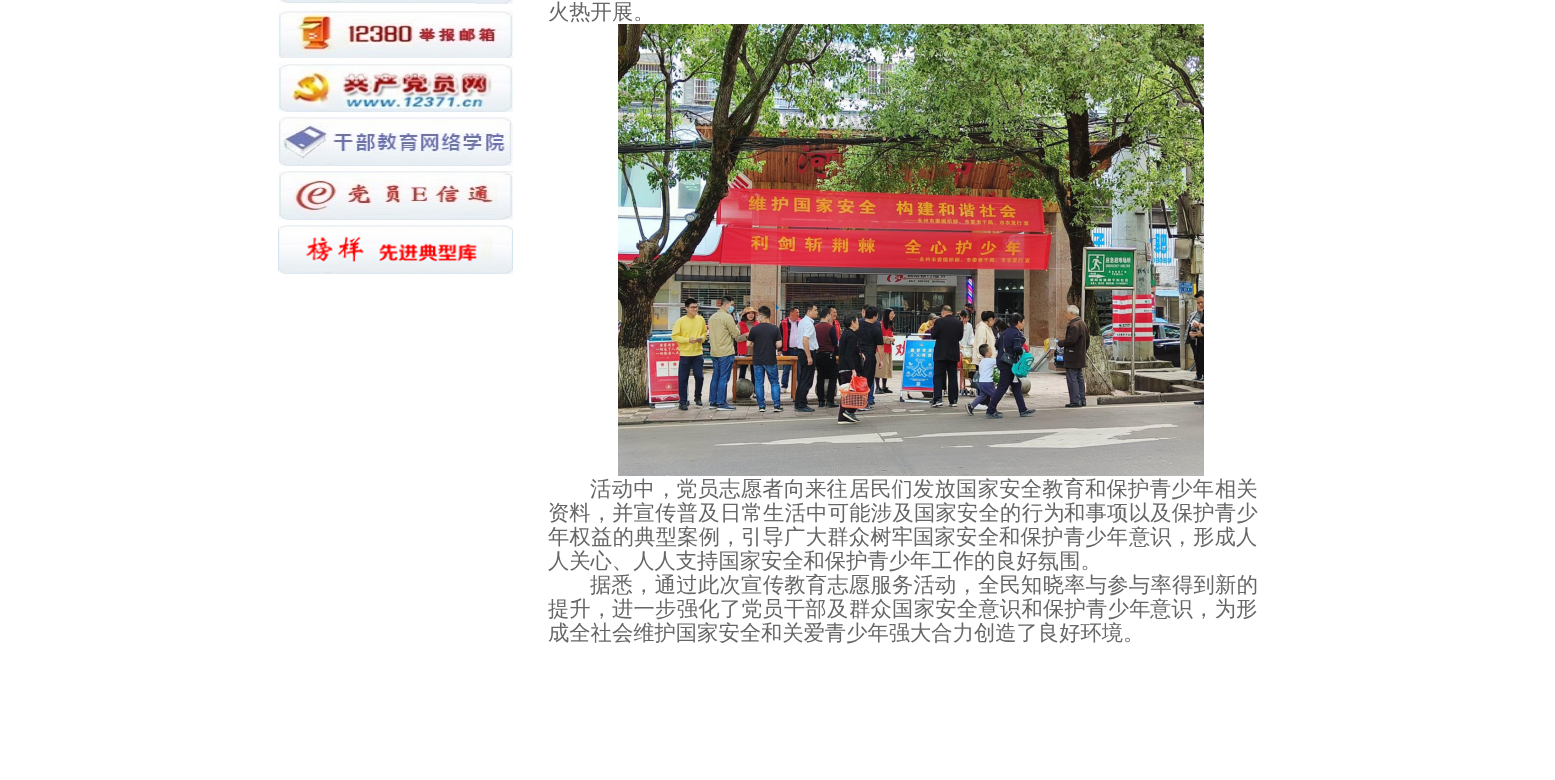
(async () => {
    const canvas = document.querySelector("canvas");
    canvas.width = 1555;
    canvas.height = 780;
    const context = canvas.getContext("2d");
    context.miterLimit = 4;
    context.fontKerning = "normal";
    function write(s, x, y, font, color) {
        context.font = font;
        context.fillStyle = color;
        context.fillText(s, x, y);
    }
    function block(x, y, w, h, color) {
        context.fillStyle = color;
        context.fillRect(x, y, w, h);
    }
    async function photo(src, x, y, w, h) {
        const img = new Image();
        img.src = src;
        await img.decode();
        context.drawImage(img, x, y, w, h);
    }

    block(0, 0, 1555, 780, "rgb(255, 255, 255)");
    await photo("media/1.png", 278, 0, 235, 4);
    await photo("media/2.png", 278, 9, 235, 49);
    await photo("media/3.png", 278, 63, 235, 49);
    await photo("media/4.png", 278, 117, 235, 49);
    await photo("media/5.png", 278, 171, 235, 49);
    await photo("media/6.png", 278, 225, 235, 49);
    write("火热开展。", 548, 19, "500 21.3px WenQuanYi Zen Hei", "rgb(103, 101, 101)");
    await photo("media/7.png", 618, 24, 586, 452);
    context.letterSpacing = "0.5px";
    write("活动中，", 590, 496, "500 21.3px WenQuanYi Zen Hei", "rgb(103, 101, 101)");
    context.letterSpacing = "0.25px";
    write("党员志愿者", 676, 496, "500 21.3px WenQuanYi Zen Hei", "rgb(103, 101, 101)");
    context.letterSpacing = "0px";
    write("向来往", 784, 496, "500 21.3px WenQuanYi Zen Hei", "rgb(103, 101, 101)");
    write("居民们", 849, 496, "500 21.3px WenQuanYi Zen Hei", "rgb(103, 101, 101)");
    context.letterSpacing = "0.25px";
    write("发放国家安全教育", 913, 496, "500 21.3px WenQuanYi Zen Hei", "rgb(103, 101, 101)");
    write("和保护青少年", 1085, 496, "500 21.3px WenQuanYi Zen Hei", "rgb(103, 101, 101)");
    context.letterSpacing = "0px";
    write("相关", 1215, 496, "500 21.3px WenQuanYi Zen Hei", "rgb(103, 101, 101)");
    write("资料", 548, 520, "500 21.3px WenQuanYi Zen Hei", "rgb(103, 101, 101)");
    write("，", 591, 520, "500 21.3px WenQuanYi Zen Hei", "rgb(103, 101, 101)");
    context.letterSpacing = "0.25px";
    write("并宣传普及", 612, 520, "500 21.3px WenQuanYi Zen Hei", "rgb(103, 101, 101)");
    write("日常生活中可能涉及国家安全的行为", 720, 520, "500 21.3px WenQuanYi Zen Hei", "rgb(103, 101, 101)");
    write("和事项以及保护青少", 1064, 520, "500 21.3px WenQuanYi Zen Hei", "rgb(103, 101, 101)");
    write("年权益的典型案例", 548, 544, "500 21.3px WenQuanYi Zen Hei", "rgb(103, 101, 101)");
    context.letterSpacing = "0px";
    write("，", 720, 544, "500 21.3px WenQuanYi Zen Hei", "rgb(103, 101, 101)");
    context.letterSpacing = "0.25px";
    write("引导广大群众树牢", 741, 544, "500 21.3px WenQuanYi Zen Hei", "rgb(103, 101, 101)");
    write("国家安全", 913, 544, "500 21.3px WenQuanYi Zen Hei", "rgb(103, 101, 101)");
    write("和保护青少年", 999, 544, "500 21.3px WenQuanYi Zen Hei", "rgb(103, 101, 101)");
    context.letterSpacing = "0px";
    write("意识，", 1129, 544, "500 21.3px WenQuanYi Zen Hei", "rgb(103, 101, 101)");
    context.letterSpacing = "0.25px";
    write("形成人", 1193, 544, "500 21.3px WenQuanYi Zen Hei", "rgb(103, 101, 101)");
    context.letterSpacing = "0px";
    write("人关心、人人支持国家安全和保护青少年工作的良好氛围。", 548, 568, "500 21.3px WenQuanYi Zen Hei", "rgb(103, 101, 101)");
    context.letterSpacing = "0.25px";
    write("据悉，通过", 590, 592, "500 21.3px WenQuanYi Zen Hei", "rgb(103, 101, 101)");
    write("此次宣传教育志愿服务活动，", 698, 592, "500 21.3px WenQuanYi Zen Hei", "rgb(103, 101, 101)");
    write("全民知晓率与参与率", 978, 592, "500 21.3px WenQuanYi Zen Hei", "rgb(103, 101, 101)");
    write("得到新的", 1172, 592, "500 21.3px WenQuanYi Zen Hei", "rgb(103, 101, 101)");
    context.letterSpacing = "0px";
    write("提升", 548, 616, "500 21.3px WenQuanYi Zen Hei", "rgb(103, 101, 101)");
    write("，", 591, 616, "500 21.3px WenQuanYi Zen Hei", "rgb(103, 101, 101)");
    context.letterSpacing = "0.25px";
    write("进一步强化了", 612, 616, "500 21.3px WenQuanYi Zen Hei", "rgb(103, 101, 101)");
    context.letterSpacing = "0px";
    write("党员", 741, 616, "500 21.3px WenQuanYi Zen Hei", "rgb(103, 101, 101)");
    write("干部", 784, 616, "500 21.3px WenQuanYi Zen Hei", "rgb(103, 101, 101)");
    write("及", 827, 616, "500 21.3px WenQuanYi Zen Hei", "rgb(103, 101, 101)");
    context.letterSpacing = "0.25px";
    write("群众国家安全意识和", 849, 616, "500 21.3px WenQuanYi Zen Hei", "rgb(103, 101, 101)");
    write("保护青少年", 1043, 616, "500 21.3px WenQuanYi Zen Hei", "rgb(103, 101, 101)");
    write("意识，为", 1150, 616, "500 21.3px WenQuanYi Zen Hei", "rgb(103, 101, 101)");
    context.letterSpacing = "0px";
    write("形", 1236, 616, "500 21.3px WenQuanYi Zen Hei", "rgb(103, 101, 101)");
    write("成全社会维护国家安全和关爱青少年强大合力创造了良好环境。", 548, 640, "500 21.3px WenQuanYi Zen Hei", "rgb(103, 101, 101)");
})();
